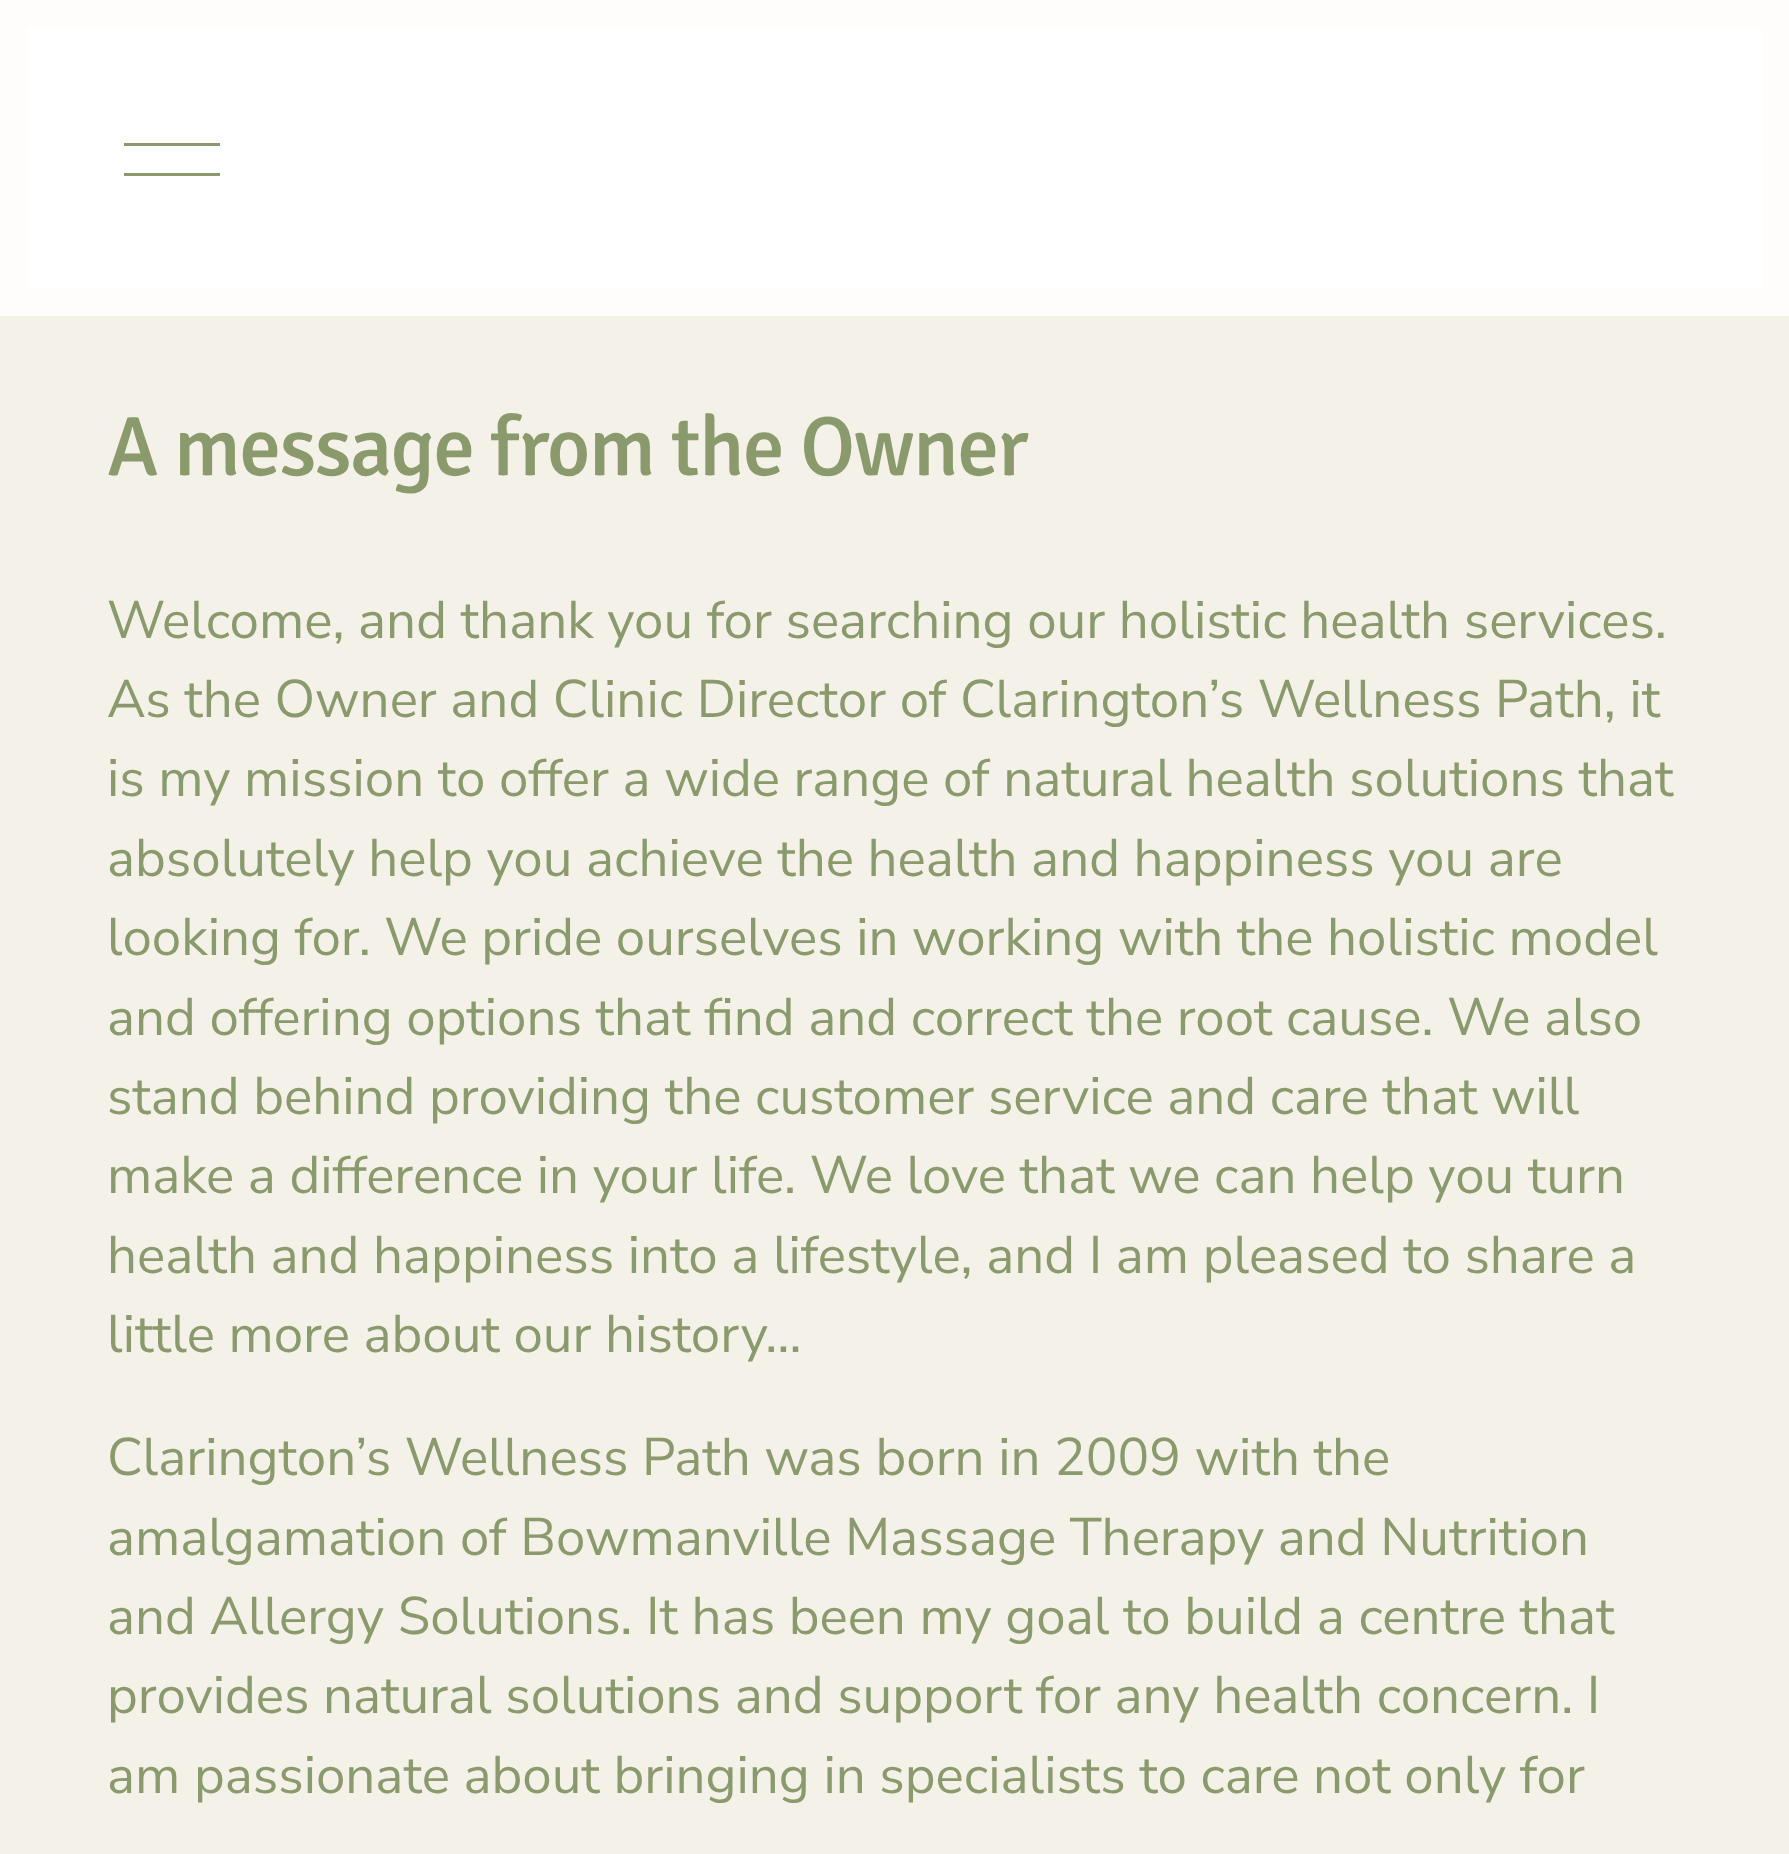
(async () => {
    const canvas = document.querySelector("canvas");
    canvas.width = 1789;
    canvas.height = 1854;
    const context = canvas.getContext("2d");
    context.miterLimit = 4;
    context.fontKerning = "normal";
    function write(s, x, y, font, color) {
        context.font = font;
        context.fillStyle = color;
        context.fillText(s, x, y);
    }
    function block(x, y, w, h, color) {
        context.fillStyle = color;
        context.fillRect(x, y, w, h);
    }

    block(0, 0, 1789, 1854, "rgb(244, 241, 233)");
    context.fillStyle = "rgb(255, 255, 255)";
    context.beginPath();
    context.rect(14, 14, 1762, 288);
    context.fill();
    context.strokeStyle = "rgb(254, 253, 252)";
    context.lineWidth = 28;
    context.stroke();
    block(124, 143, 96, 3, "rgb(139, 154, 108)");
    block(124, 173, 96, 3, "rgb(139, 154, 108)");
    context.letterSpacing = "-1.7px";
    write("A message from the Owner", 107, 475, "500 84px Signika Negative", "rgb(139, 154, 108)");
    context.letterSpacing = "0px";
    write("Welcome, and thank you for searching our holistic health services.", 107, 638, "52.9px Nunito Sans", "rgb(139, 154, 108)");
    write("As the Owner and Clinic Director of Clarington’s Wellness Path, it", 107, 717, "52.9px Nunito Sans", "rgb(139, 154, 108)");
    write("is my mission to offer a wide range of natural health solutions that", 107, 796, "52.9px Nunito Sans", "rgb(139, 154, 108)");
    write("absolutely help you achieve the health and happiness you are", 107, 876, "52.9px Nunito Sans", "rgb(139, 154, 108)");
    write("looking for. We pride ourselves in working with the holistic model", 107, 955, "52.9px Nunito Sans", "rgb(139, 154, 108)");
    write("and offering options that find and correct the root cause. We also", 107, 1035, "52.9px Nunito Sans", "rgb(139, 154, 108)");
    write("stand behind providing the customer service and care that will", 107, 1114, "52.9px Nunito Sans", "rgb(139, 154, 108)");
    write("make a difference in your life. We love that we can help you turn", 107, 1193, "52.9px Nunito Sans", "rgb(139, 154, 108)");
    write("health and happiness into a lifestyle, and I am pleased to share a", 107, 1273, "52.9px Nunito Sans", "rgb(139, 154, 108)");
    write("little more about our history…", 107, 1352, "52.9px Nunito Sans", "rgb(139, 154, 108)");
    write("Clarington’s Wellness Path was born in 2009 with the", 107, 1475, "52.9px Nunito Sans", "rgb(139, 154, 108)");
    write("amalgamation of Bowmanville Massage Therapy and Nutrition", 107, 1555, "52.9px Nunito Sans", "rgb(139, 154, 108)");
    write("and Allergy Solutions. It has been my goal to build a centre that", 107, 1634, "52.9px Nunito Sans", "rgb(139, 154, 108)");
    write("provides natural solutions and support for any health concern. I", 107, 1713, "52.9px Nunito Sans", "rgb(139, 154, 108)");
    write("am passionate about bringing in specialists to care not only for", 107, 1793, "52.9px Nunito Sans", "rgb(139, 154, 108)");
})();
